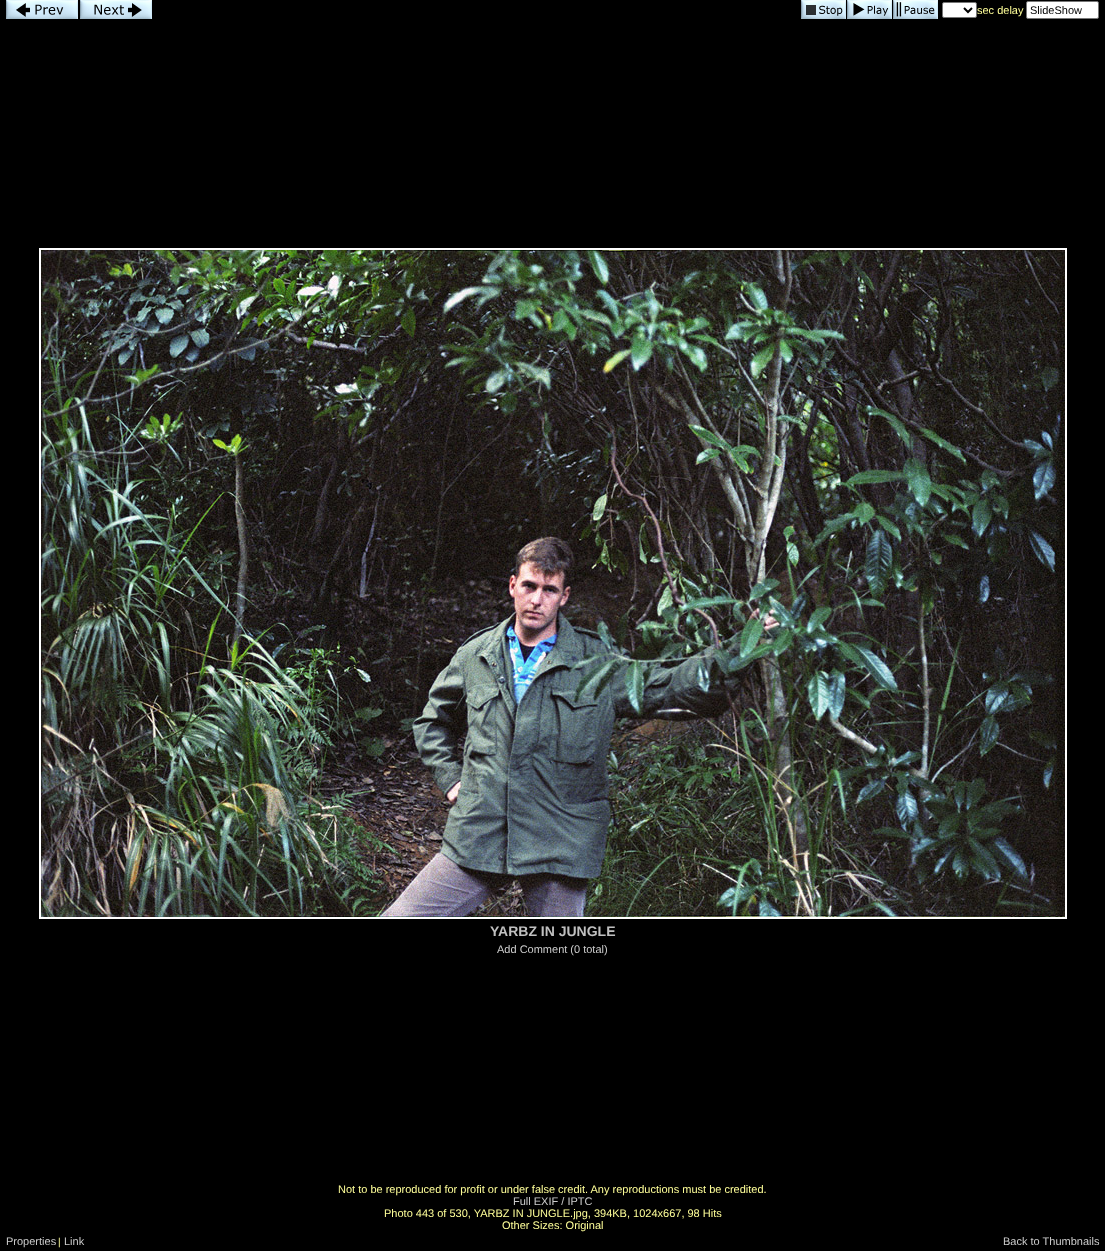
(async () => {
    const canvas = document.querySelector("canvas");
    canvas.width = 1105;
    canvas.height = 1251;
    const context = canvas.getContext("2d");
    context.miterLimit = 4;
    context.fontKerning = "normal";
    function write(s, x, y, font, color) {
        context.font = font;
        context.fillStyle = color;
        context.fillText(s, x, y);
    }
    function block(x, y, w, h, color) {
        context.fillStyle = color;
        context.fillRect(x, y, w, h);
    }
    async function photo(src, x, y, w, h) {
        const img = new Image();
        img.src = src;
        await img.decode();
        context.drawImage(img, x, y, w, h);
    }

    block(0, 0, 1105, 1251, "rgb(0, 0, 0)");
    await photo("media/1.png", 6, 0, 72, 19);
    await photo("media/2.png", 80, 0, 72, 19);
    await photo("media/3.png", 801, 0, 45, 19);
    await photo("media/4.png", 847, 0, 45, 19);
    await photo("media/5.png", 893, 0, 45, 19);
    context.fillStyle = "rgb(255, 255, 255)";
    context.beginPath();
    context.roundRect(942.5, 2.5, 34, 15, 1.5);
    context.fill();
    context.strokeStyle = "rgb(118, 118, 118)";
    context.stroke();
    context.beginPath();
    context.moveTo(964, 8);
    context.lineTo(968, 12);
    context.lineTo(972, 8);
    context.strokeStyle = "rgb(0, 0, 0)";
    context.lineWidth = 2;
    context.stroke();
    write("sec delay", 977, 14, "11px Liberation Sans", "rgb(255, 255, 153)");
    context.fillStyle = "rgb(255, 255, 255)";
    context.beginPath();
    context.roundRect(1026.5, 1.5, 72, 17, 1.5);
    context.fill();
    context.strokeStyle = "rgb(118, 118, 118)";
    context.lineWidth = 1;
    context.stroke();
    write("SlideShow", 1030, 14, "11px Liberation Sans", "rgb(0, 0, 0)");
    context.strokeStyle = "rgb(255, 255, 255)";
    context.lineWidth = 2;
    context.strokeRect(40, 249, 1026, 669);
    await photo("media/6.png", 41, 250, 1024, 667);
    write("YARBZ IN JUNGLE", 490, 936, "bold 14px Liberation Sans", "rgb(192, 192, 192)");
    write("Add Comment (0 total)", 497, 953, "11px Liberation Sans", "rgb(204, 204, 204)");
    write("Not to be reproduced for profit or under false credit. Any reproductions must be credited.", 338, 1193, "11px Liberation Sans", "rgb(255, 255, 153)");
    write("Full EXIF / IPTC", 513, 1205, "11px Liberation Sans", "rgb(204, 204, 204)");
    write("Photo 443 of 530, YARBZ IN JUNGLE.jpg, 394KB, 1024x667, 98 Hits", 384, 1217, "11px Liberation Sans", "rgb(255, 255, 153)");
    write("Other Sizes: Original", 502, 1229, "11px Liberation Sans", "rgb(255, 255, 153)");
    write("Properties", 6, 1245, "11px Liberation Sans", "rgb(204, 204, 204)");
    write("|", 58, 1245, "10px Liberation Sans", "rgb(255, 255, 153)");
    write("Link", 64, 1245, "11px Liberation Sans", "rgb(204, 204, 204)");
    write("Back to Thumbnails", 1003, 1245, "11px Liberation Sans", "rgb(204, 204, 204)");
})();
